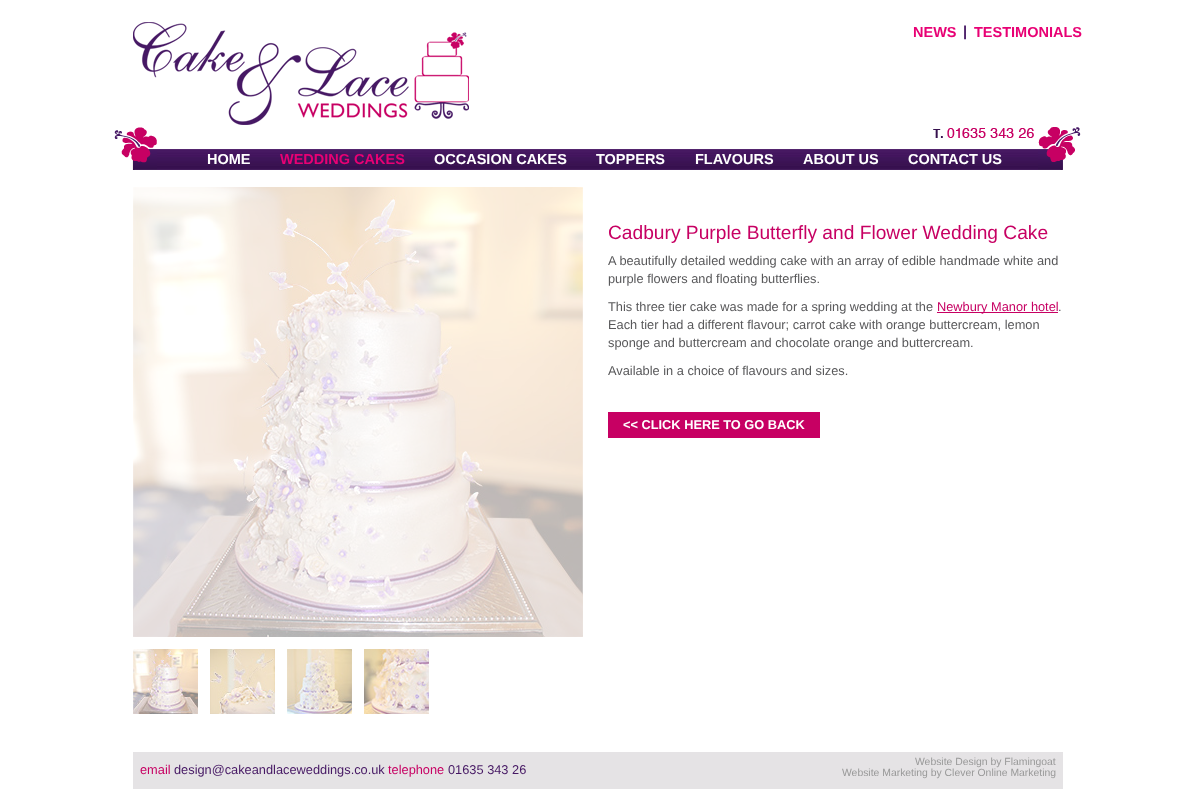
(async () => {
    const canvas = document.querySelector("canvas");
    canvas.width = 1196;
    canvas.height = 809;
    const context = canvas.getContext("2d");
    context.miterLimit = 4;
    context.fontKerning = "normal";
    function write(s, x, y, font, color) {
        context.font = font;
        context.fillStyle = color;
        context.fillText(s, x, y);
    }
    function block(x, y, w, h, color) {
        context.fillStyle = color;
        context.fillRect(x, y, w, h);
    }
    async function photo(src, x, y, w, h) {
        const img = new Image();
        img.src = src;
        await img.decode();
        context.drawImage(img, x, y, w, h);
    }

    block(0, 0, 1196, 809, "rgb(255, 255, 255)");
    await photo("media/1.png", 133, 22, 336, 103);
    write("NEWS", 913, 37, "bold 14.5px Liberation Sans", "rgb(232, 0, 116)");
    write("|", 963, 36, "bold 14.5px Liberation Sans", "rgb(70, 24, 100)");
    write("TESTIMONIALS", 974, 37, "bold 14.5px Liberation Sans", "rgb(232, 0, 116)");
    await photo("media/2.png", 157, 149, 881, 21);
    await photo("media/3.png", 933, 128, 101, 10);
    await photo("media/4.png", 108, 127, 49, 43);
    write("HOME", 207, 164, "bold 14.5px Liberation Sans", "rgb(255, 255, 255)");
    write("WEDDING CAKES", 280, 164, "bold 14.5px Liberation Sans", "rgb(232, 0, 116)");
    write("OCCASION CAKES", 434, 164, "bold 14.5px Liberation Sans", "rgb(255, 255, 255)");
    write("TOPPERS", 596, 164, "bold 14.5px Liberation Sans", "rgb(255, 255, 255)");
    write("FLAVOURS", 695, 164, "bold 14.5px Liberation Sans", "rgb(255, 255, 255)");
    write("ABOUT US", 803, 164, "bold 14.5px Liberation Sans", "rgb(255, 255, 255)");
    write("CONTACT US", 908, 164, "bold 14.5px Liberation Sans", "rgb(255, 255, 255)");
    await photo("media/5.png", 1038, 127, 50, 43);
    await photo("media/6.png", 133, 187, 450, 450);
    await photo("media/7.png", 133, 649, 65, 65);
    await photo("media/8.png", 210, 649, 65, 65);
    await photo("media/9.png", 287, 649, 65, 65);
    await photo("media/10.png", 364, 649, 65, 65);
    write("Cadbury Purple Butterfly and Flower Wedding Cake", 608, 239, "19.2px Liberation Sans", "rgb(199, 0, 99)");
    write("A beautifully detailed wedding cake with an array of edible handmade white and", 608, 265, "12.8px Liberation Sans", "rgb(88, 88, 90)");
    write("purple flowers and floating butterflies.", 608, 283, "12.8px Liberation Sans", "rgb(88, 88, 90)");
    write("This three tier cake was made for a spring wedding at the", 608, 311, "12.8px Liberation Sans", "rgb(88, 88, 90)");
    block(937, 312, 121, 1, "rgb(199, 0, 99)");
    write("Newbury Manor hotel", 937, 311, "12.8px Liberation Sans", "rgb(199, 0, 99)");
    write(".", 1058, 311, "12.8px Liberation Sans", "rgb(88, 88, 90)");
    write("Each tier had a different flavour; carrot cake with orange buttercream, lemon", 608, 329, "12.8px Liberation Sans", "rgb(88, 88, 90)");
    write("sponge and buttercream and chocolate orange and buttercream.", 608, 347, "12.8px Liberation Sans", "rgb(88, 88, 90)");
    write("Available in a choice of flavours and sizes.", 608, 375, "12.8px Liberation Sans", "rgb(88, 88, 90)");
    block(608, 412, 212, 26, "rgb(199, 0, 99)");
    write("<< CLICK HERE TO GO BACK", 623, 429, "bold 12.8px Liberation Sans", "rgb(255, 255, 255)");
    block(133, 752, 930, 37, "rgb(229, 227, 229)");
    write("email", 140, 774, "12.8px Liberation Sans", "rgb(199, 0, 99)");
    write("design@cakeandlaceweddings.co.uk", 174, 774, "12.8px Liberation Sans", "rgb(70, 24, 100)");
    write("telephone", 388, 774, "12.8px Liberation Sans", "rgb(199, 0, 99)");
    write("01635 343 26", 448, 774, "12.8px Liberation Sans", "rgb(70, 24, 100)");
    write("Website Design by Flamingoat", 915, 765, "10.4px Liberation Sans", "rgb(153, 153, 153)");
    write("Website Marketing by Clever Online Marketing", 842, 776, "10.4px Liberation Sans", "rgb(153, 153, 153)");
})();
